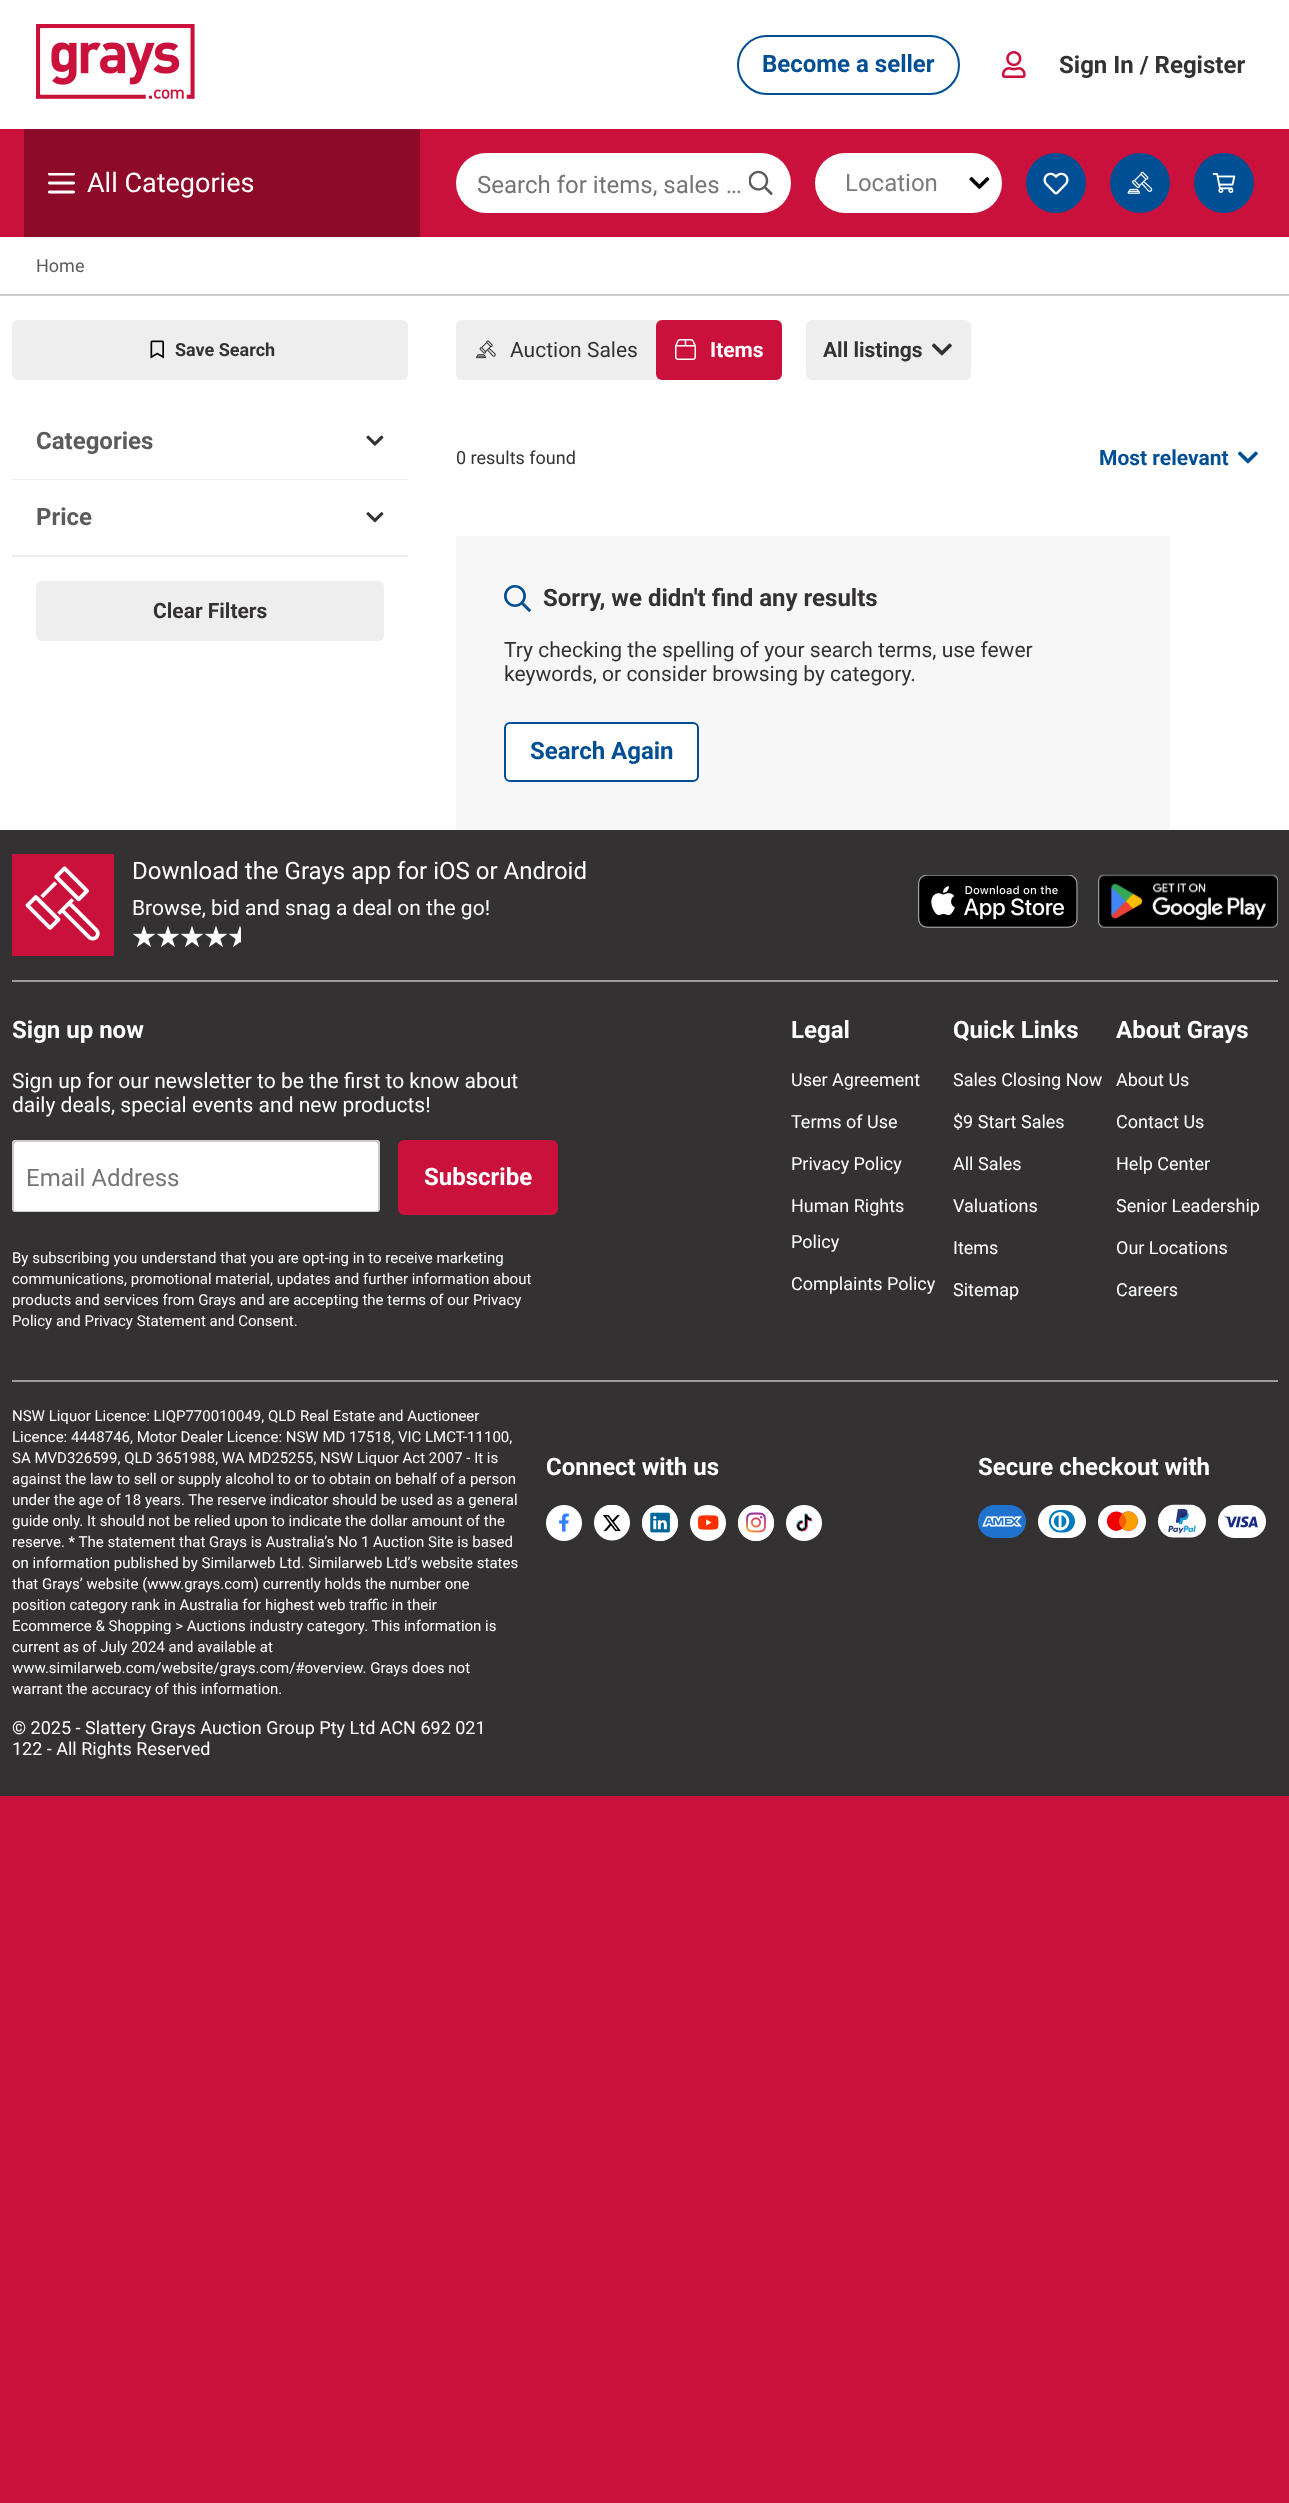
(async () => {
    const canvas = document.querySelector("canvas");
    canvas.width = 1289;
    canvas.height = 2503;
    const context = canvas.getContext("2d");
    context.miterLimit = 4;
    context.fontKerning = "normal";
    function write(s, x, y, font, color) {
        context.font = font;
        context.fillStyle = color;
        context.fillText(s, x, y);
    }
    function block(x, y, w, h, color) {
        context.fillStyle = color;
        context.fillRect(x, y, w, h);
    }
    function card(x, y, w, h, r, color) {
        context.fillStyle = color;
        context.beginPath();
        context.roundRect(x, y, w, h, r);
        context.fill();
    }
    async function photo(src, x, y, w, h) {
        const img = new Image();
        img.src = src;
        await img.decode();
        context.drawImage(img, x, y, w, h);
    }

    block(0, 0, 1289, 2503, "rgb(202, 17, 60)");
    block(0, 0, 1289, 830, "rgb(255, 255, 255)");
    await photo("media/1.png", 36, 24, 159, 75);
    context.beginPath();
    context.roundRect(738, 36, 221, 58, 29);
    context.strokeStyle = "rgb(0, 78, 147)";
    context.lineWidth = 2;
    context.stroke();
    write("Become a seller", 762, 72, "bold 24px Roboto", "rgb(0, 78, 147)");
    await photo("media/2.png", 1002, 51, 24, 27);
    write("Sign In / Register", 1059, 73, "bold 24px Roboto", "rgb(51, 49, 50)");
    block(0, 129, 1289, 108, "rgb(202, 17, 60)");
    block(24, 129, 396, 108, "rgb(141, 10, 41)");
    await photo("media/3.png", 48, 173, 27, 21);
    write("All Categories", 87, 192, "27px Roboto", "rgb(255, 255, 255)");
    card(456, 153, 335, 60, 30, "rgb(255, 255, 255)");
    write("Search for items, sales …", 477, 193, "24px Roboto", "rgb(117, 117, 117)");
    await photo("media/4.png", 749, 170, 24, 26);
    card(815, 153, 187, 60, 30, "rgb(255, 255, 255)");
    write("Location", 845, 191, "24px Roboto", "rgb(124, 123, 124)");
    await photo("media/5.png", 969, 177, 21, 12);
    context.fillStyle = "rgb(0, 78, 147)";
    context.beginPath();
    context.arc(1056, 183, 30, 0, Math.PI * 2);
    context.fill();
    await photo("media/6.png", 1043, 172, 26, 23);
    context.beginPath();
    context.arc(1140, 183, 30, 0, Math.PI * 2);
    context.fill();
    await photo("media/7.png", 1127, 171, 26, 23);
    context.beginPath();
    context.arc(1224, 183, 30, 0, Math.PI * 2);
    context.fill();
    await photo("media/8.png", 1212, 173, 24, 20);
    block(0, 294, 1289, 2, "rgb(206, 205, 206)");
    write("Home", 36, 272, "18px Roboto", "rgb(92, 90, 91)");
    card(12, 320, 396, 60, 6, "rgb(239, 238, 239)");
    await photo("media/9.png", 150, 340, 14, 19);
    write("Save Search", 175, 356, "bold 18px Roboto", "rgb(51, 49, 50)");
    block(12, 479, 396, 1, "rgb(239, 238, 239)");
    write("Categories", 36, 449, "bold 24px Roboto", "rgb(92, 90, 91)");
    await photo("media/10.png", 366, 435, 18, 11);
    block(12, 555, 396, 2, "rgb(239, 238, 239)");
    write("Price", 36, 525, "bold 24px Roboto", "rgb(92, 90, 91)");
    await photo("media/11.png", 366, 512, 18, 11);
    card(36, 581, 348, 60, 6, "rgb(239, 238, 239)");
    write("Clear Filters", 153, 618, "bold 21px Roboto", "rgb(51, 49, 50)");
    card(456, 320, 326, 60, 6, "rgb(239, 238, 239)");
    card(456, 320, 200, 60, 6, "rgb(239, 238, 239)");
    await photo("media/12.png", 476, 340, 20, 19);
    write("Auction Sales", 510, 357, "21px Roboto", "rgb(51, 49, 50)");
    card(656, 320, 126, 60, 6, "rgb(202, 17, 60)");
    await photo("media/13.png", 675, 339, 21, 21);
    write("Items", 710, 357, "bold 21px Roboto", "rgb(255, 255, 255)");
    card(806, 320, 165, 60, 6, "rgb(239, 238, 239)");
    write("All listings", 823, 357, "bold 21px Roboto", "rgb(51, 49, 50)");
    await photo("media/14.png", 932, 343, 20, 13);
    write("0 results found", 456, 464, "18px Roboto", "rgb(51, 49, 50)");
    write("Most relevant", 1099, 465, "bold 21px Roboto", "rgb(0, 78, 147)");
    await photo("media/15.png", 1238, 451, 20, 13);
    block(456, 536, 714, 294, "rgb(247, 247, 247)");
    await photo("media/16.png", 504, 585, 27, 27);
    write("Sorry, we didn't find any results", 543, 606, "bold 24px Roboto", "rgb(51, 49, 50)");
    write("Try checking the spelling of your search terms, use fewer", 504, 657, "21px Roboto", "rgb(51, 49, 50)");
    write("keywords, or consider browsing by category.", 504, 681, "21px Roboto", "rgb(51, 49, 50)");
    context.fillStyle = "rgb(255, 255, 255)";
    context.beginPath();
    context.roundRect(505, 723, 193, 58, 5);
    context.fill();
    context.stroke();
    write("Search Again", 530, 759, "bold 24px Roboto", "rgb(0, 78, 147)");
    block(0, 830, 1289, 966, "rgb(51, 49, 50)");
    block(12, 980, 1266, 2, "rgb(157, 156, 157)");
    await photo("media/17.png", 12, 854, 102, 102);
    write("Download the Grays app for iOS or Android", 132, 879, "24px Roboto", "rgb(255, 255, 255)");
    write("Browse, bid and snag a deal on the go!", 132, 915, "21px Roboto", "rgb(255, 255, 255)");
    await photo("media/18.png", 132, 926, 24, 21);
    await photo("media/18.png", 156, 926, 24, 21);
    await photo("media/18.png", 180, 926, 24, 21);
    await photo("media/18.png", 204, 926, 24, 21);
    await photo("media/19.png", 228, 926, 13, 21);
    await photo("media/20.png", 918, 875, 160, 53);
    await photo("media/21.png", 1098, 874, 180, 54);
    block(12, 1380, 1266, 2, "rgb(157, 156, 157)");
    write("Sign up now", 12, 1038, "bold 24px Roboto", "rgb(255, 255, 255)");
    write("Sign up for our newsletter to be the first to know about", 12, 1088, "21px Roboto", "rgb(255, 255, 255)");
    write("daily deals, special events and new products!", 12, 1112, "21px Roboto", "rgb(255, 255, 255)");
    context.beginPath();
    context.roundRect(13, 1141, 366, 70, 2);
    context.strokeStyle = "rgb(206, 205, 206)";
    context.stroke();
    card(14, 1142, 364, 69, 1.5, "rgb(255, 255, 255)");
    write("Email Address", 26, 1186, "24px Roboto", "rgb(117, 117, 117)");
    context.fillStyle = "rgb(202, 17, 60)";
    context.beginPath();
    context.roundRect(399, 1141, 158, 73, 5);
    context.fill();
    context.strokeStyle = "rgb(202, 17, 60)";
    context.stroke();
    write("Subscribe", 424, 1185, "bold 24px Roboto", "rgb(255, 255, 255)");
    write("By subscribing you understand that you are opt-ing in to receive marketing", 12, 1263, "15px Roboto", "rgb(255, 255, 255)");
    write("communications, promotional material, updates and further information about", 12, 1284, "15px Roboto", "rgb(255, 255, 255)");
    write("products and services from Grays and are accepting the terms of our Privacy", 12, 1305, "15px Roboto", "rgb(255, 255, 255)");
    write("Policy and Privacy Statement and Consent.", 12, 1326, "15px Roboto", "rgb(255, 255, 255)");
    write("Legal", 791, 1038, "bold 24px Roboto", "rgb(255, 255, 255)");
    write("User Agreement", 791, 1086, "18px Roboto", "rgb(255, 255, 255)");
    write("Terms of Use", 791, 1128, "18px Roboto", "rgb(255, 255, 255)");
    write("Privacy Policy", 791, 1170, "18px Roboto", "rgb(255, 255, 255)");
    write("Human Rights", 791, 1212, "18px Roboto", "rgb(255, 255, 255)");
    write("Policy", 791, 1248, "18px Roboto", "rgb(255, 255, 255)");
    write("Complaints Policy", 791, 1290, "18px Roboto", "rgb(255, 255, 255)");
    write("Quick Links", 953, 1038, "bold 24px Roboto", "rgb(255, 255, 255)");
    write("Sales Closing Now", 953, 1086, "18px Roboto", "rgb(255, 255, 255)");
    write("$9 Start Sales", 953, 1128, "18px Roboto", "rgb(255, 255, 255)");
    write("All Sales", 953, 1170, "18px Roboto", "rgb(255, 255, 255)");
    write("Valuations", 953, 1212, "18px Roboto", "rgb(255, 255, 255)");
    write("Items", 953, 1254, "18px Roboto", "rgb(255, 255, 255)");
    write("Sitemap", 953, 1296, "18px Roboto", "rgb(255, 255, 255)");
    write("About Grays", 1116, 1038, "bold 24px Roboto", "rgb(255, 255, 255)");
    write("About Us", 1116, 1086, "18px Roboto", "rgb(255, 255, 255)");
    write("Contact Us", 1116, 1128, "18px Roboto", "rgb(255, 255, 255)");
    write("Help Center", 1116, 1170, "18px Roboto", "rgb(255, 255, 255)");
    write("Senior Leadership", 1116, 1212, "18px Roboto", "rgb(255, 255, 255)");
    write("Our Locations", 1116, 1254, "18px Roboto", "rgb(255, 255, 255)");
    write("Careers", 1116, 1296, "18px Roboto", "rgb(255, 255, 255)");
    write("NSW Liquor Licence: LIQP770010049, QLD Real Estate and Auctioneer", 12, 1421, "15px Roboto", "rgb(255, 255, 255)");
    write("Licence: 4448746, Motor Dealer Licence: NSW MD 17518, VIC LMCT-11100,", 12, 1442, "15px Roboto", "rgb(255, 255, 255)");
    write("SA MVD326599, QLD 3651988, WA MD25255, NSW Liquor Act 2007 - It is", 12, 1463, "15px Roboto", "rgb(255, 255, 255)");
    write("against the law to sell or supply alcohol to or to obtain on behalf of a person", 12, 1484, "15px Roboto", "rgb(255, 255, 255)");
    write("under the age of 18 years. The reserve indicator should be used as a general", 12, 1505, "15px Roboto", "rgb(255, 255, 255)");
    write("guide only. It should not be relied upon to indicate the dollar amount of the", 12, 1526, "15px Roboto", "rgb(255, 255, 255)");
    write("reserve. * The statement that Grays is Australia’s No 1 Auction Site is based", 12, 1547, "15px Roboto", "rgb(255, 255, 255)");
    write("on information published by Similarweb Ltd. Similarweb Ltd’s website states", 12, 1568, "15px Roboto", "rgb(255, 255, 255)");
    write("that Grays’ website (www.grays.com) currently holds the number one", 12, 1589, "15px Roboto", "rgb(255, 255, 255)");
    write("position category rank in Australia for highest web traffic in their", 12, 1610, "15px Roboto", "rgb(255, 255, 255)");
    write("Ecommerce & Shopping > Auctions industry category. This information is", 12, 1631, "15px Roboto", "rgb(255, 255, 255)");
    write("current as of July 2024 and available at", 12, 1652, "15px Roboto", "rgb(255, 255, 255)");
    write("www.similarweb.com/website/grays.com/#overview. Grays does not", 12, 1673, "15px Roboto", "rgb(255, 255, 255)");
    write("warrant the accuracy of this information.", 12, 1694, "15px Roboto", "rgb(255, 255, 255)");
    write("© 2025 - Slattery Grays Auction Group Pty Ltd ACN 692 021", 12, 1734, "18px Roboto", "rgb(255, 255, 255)");
    write("122 - All Rights Reserved", 12, 1755, "18px Roboto", "rgb(255, 255, 255)");
    write("Connect with us", 546, 1475, "bold 24px Roboto", "rgb(255, 255, 255)");
    await photo("media/22.png", 546, 1505, 36, 36);
    await photo("media/23.png", 594, 1505, 36, 36);
    await photo("media/24.png", 642, 1505, 36, 36);
    await photo("media/25.png", 690, 1505, 36, 36);
    await photo("media/26.png", 738, 1505, 36, 36);
    await photo("media/27.png", 786, 1505, 36, 36);
    write("Secure checkout with", 978, 1475, "bold 24px Roboto", "rgb(255, 255, 255)");
    await photo("media/28.png", 978, 1505, 48, 33);
    await photo("media/29.png", 1038, 1505, 48, 33);
    await photo("media/30.png", 1098, 1505, 48, 33);
    await photo("media/31.png", 1158, 1504, 48, 34);
    await photo("media/32.png", 1218, 1505, 48, 33);
})();
